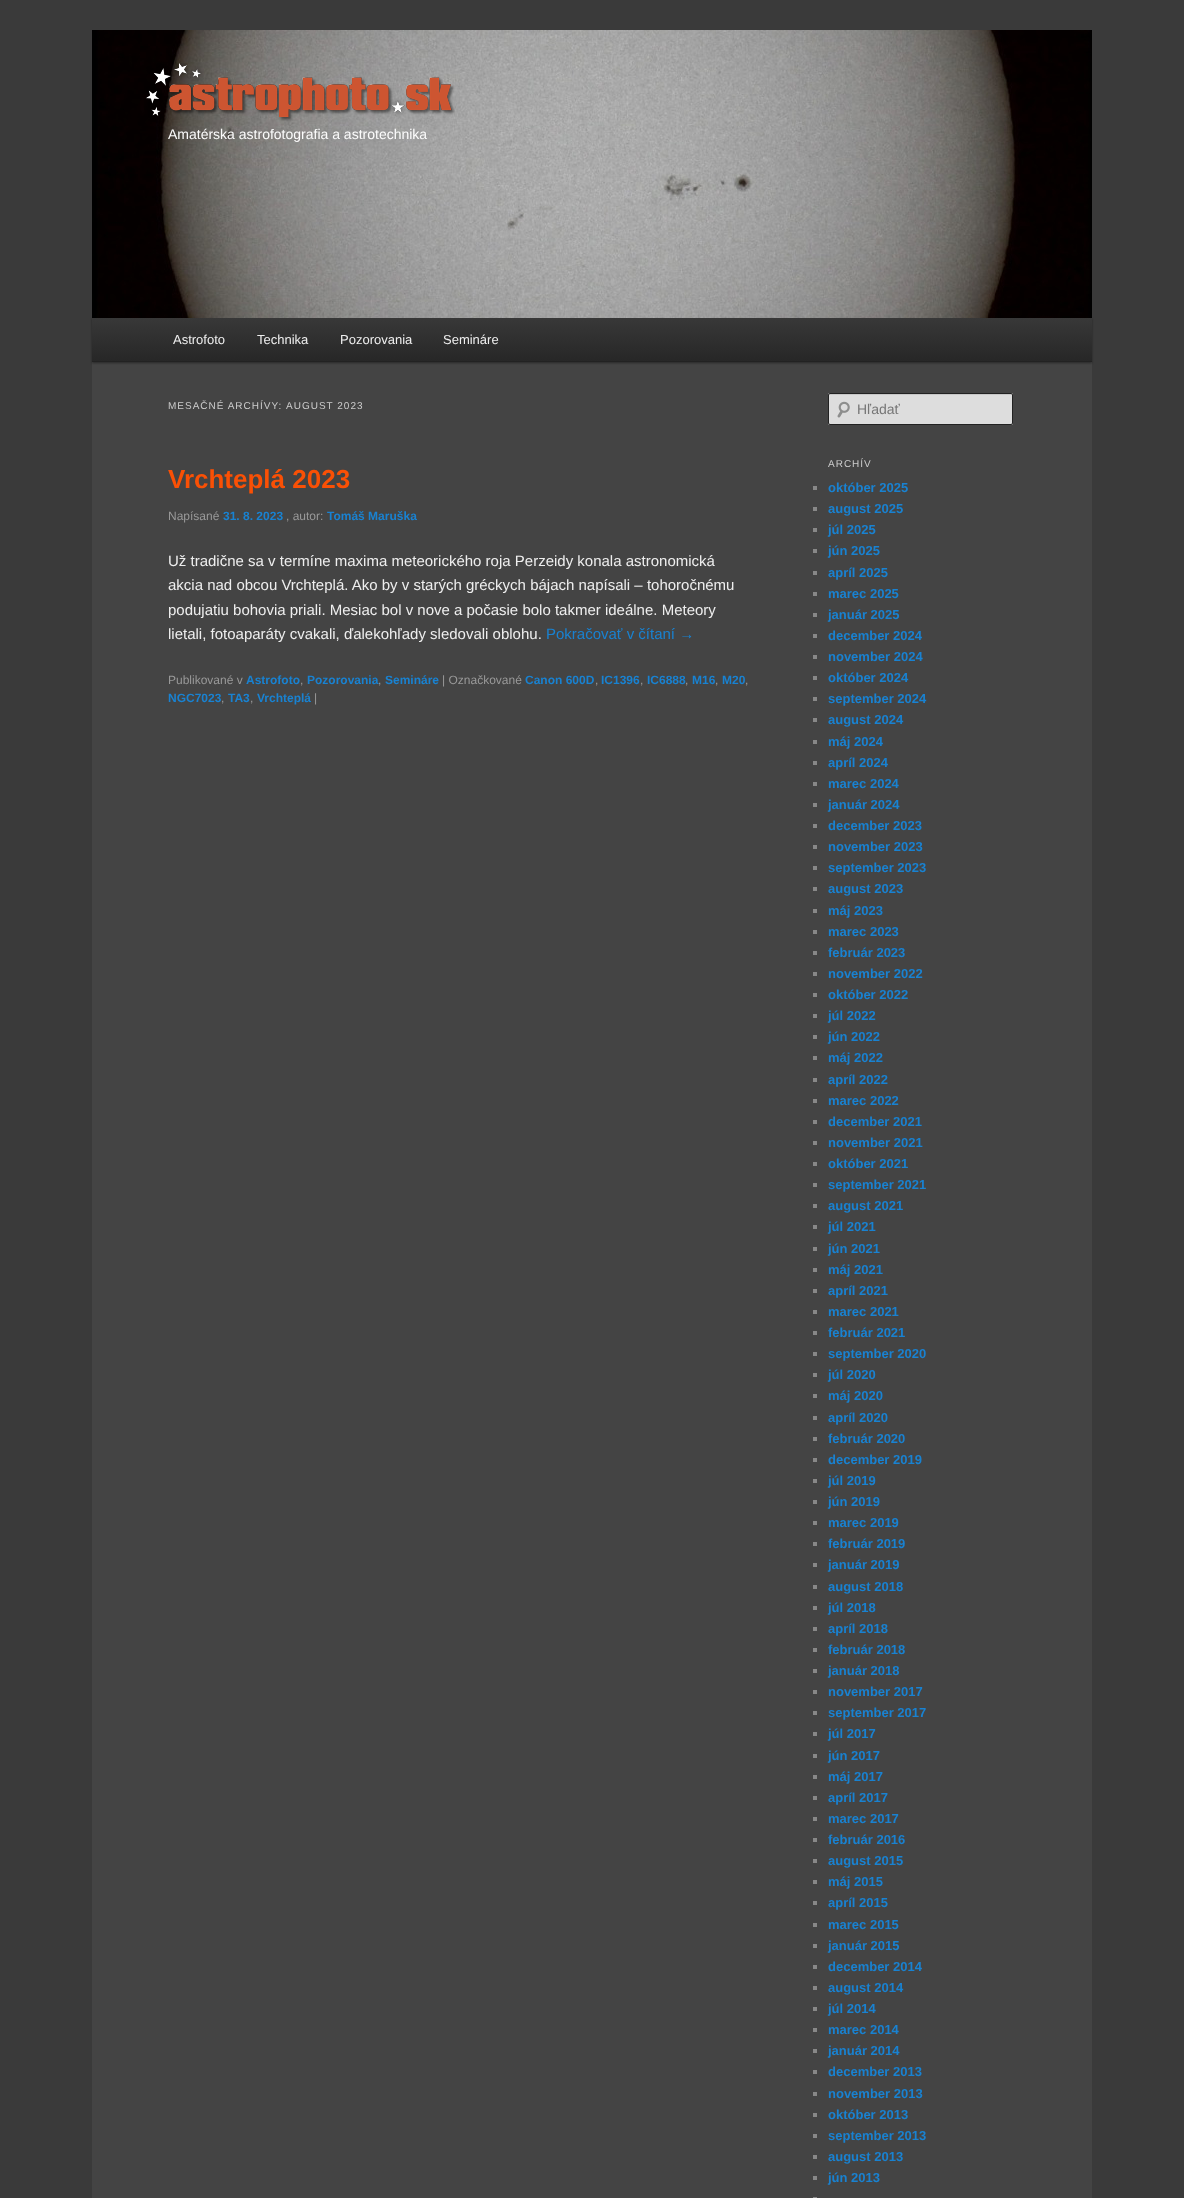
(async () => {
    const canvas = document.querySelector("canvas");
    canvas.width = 1184;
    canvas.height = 2198;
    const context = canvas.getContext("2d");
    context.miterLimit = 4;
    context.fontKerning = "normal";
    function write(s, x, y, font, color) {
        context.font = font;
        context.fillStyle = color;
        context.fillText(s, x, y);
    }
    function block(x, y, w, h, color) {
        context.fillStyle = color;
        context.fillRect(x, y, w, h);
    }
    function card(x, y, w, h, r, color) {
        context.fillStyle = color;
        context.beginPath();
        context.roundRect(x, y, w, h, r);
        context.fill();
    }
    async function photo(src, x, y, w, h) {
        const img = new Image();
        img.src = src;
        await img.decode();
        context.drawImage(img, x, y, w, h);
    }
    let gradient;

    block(0, 0, 1184, 2198, "rgb(58, 58, 58)");
    block(92, 362, 1000, 1836, "rgb(68, 68, 68)");
    context.fillStyle = "rgba(0, 0, 0, 0.4)";
    context.filter = "blur(1px)";
    context.beginPath();
    context.rect(92, 319, 1000, 44);
    context.fill();
    context.filter = "none";
    await photo("media/1.png", 92, 30, 1000, 288);
    await photo("media/2.png", 146, 63, 309, 58);
    write("Amatérska astrofotografia a astrotechnika", 168, 139, "14px Liberation Sans", "rgb(252, 252, 252)");
    gradient = context.createLinearGradient(592, 318, 592, 361);
    gradient.addColorStop(0, "rgb(56, 56, 56)");
    gradient.addColorStop(1, "rgb(39, 39, 39)");
    context.fillStyle = gradient;
    context.fillRect(92, 318, 1000, 43);
    block(92, 361, 1000, 1, "rgb(34, 34, 34)");
    write("Astrofoto", 173, 344, "13px Liberation Sans", "rgb(238, 238, 238)");
    write("Technika", 257, 344, "13px Liberation Sans", "rgb(238, 238, 238)");
    write("Pozorovania", 340, 344, "13px Liberation Sans", "rgb(238, 238, 238)");
    write("Semináre", 443, 344, "13px Liberation Sans", "rgb(238, 238, 238)");
    context.letterSpacing = "1px";
    write("MESAČNÉ ARCHÍVY:", 168, 409, "10px Liberation Sans", "rgb(204, 204, 204)");
    write("AUGUST 2023", 286, 409, "10px Liberation Sans", "rgb(204, 204, 204)");
    context.letterSpacing = "0px";
    write("Vrchteplá 2023", 168, 488, "bold 26px Liberation Sans", "rgb(250, 80, 5)");
    write("Napísané", 168, 520, "12px Liberation Sans", "rgb(153, 153, 153)");
    write("31. 8. 2023", 223, 520, "bold 12px Liberation Sans", "rgb(25, 130, 209)");
    write(", autor:", 286, 520, "12px Liberation Sans", "rgb(153, 153, 153)");
    write("Tomáš Maruška", 327, 520, "bold 12px Liberation Sans", "rgb(25, 130, 209)");
    write("Už tradične sa v termíne maxima meteorického roja Perzeidy konala astronomická", 168, 566, "15px Liberation Sans", "rgb(238, 238, 238)");
    write("akcia nad obcou Vrchteplá. Ako by v starých gréckych bájach napísali – tohoročnému", 168, 590, "15px Liberation Sans", "rgb(238, 238, 238)");
    write("podujatiu bohovia priali. Mesiac bol v nove a počasie bolo takmer ideálne. Meteory", 168, 615, "15px Liberation Sans", "rgb(238, 238, 238)");
    write("lietali, fotoaparáty cvakali, ďalekohľady sledovali oblohu.", 168, 639, "15px Liberation Sans", "rgb(238, 238, 238)");
    write("Pokračovať v čítaní →", 546, 639, "15px Liberation Sans", "rgb(25, 130, 209)");
    write("Publikované v", 168, 684, "12px Liberation Sans", "rgb(153, 153, 153)");
    write("Astrofoto", 246, 684, "bold 12px Liberation Sans", "rgb(25, 130, 209)");
    write(",", 300, 684, "12px Liberation Sans", "rgb(153, 153, 153)");
    write("Pozorovania", 307, 684, "bold 12px Liberation Sans", "rgb(25, 130, 209)");
    write(",", 378, 684, "12px Liberation Sans", "rgb(153, 153, 153)");
    write("Semináre", 385, 684, "bold 12px Liberation Sans", "rgb(25, 130, 209)");
    write("| Označkované", 442, 684, "12px Liberation Sans", "rgb(153, 153, 153)");
    write("Canon 600D", 525, 684, "bold 12px Liberation Sans", "rgb(25, 130, 209)");
    write(",", 595, 684, "12px Liberation Sans", "rgb(153, 153, 153)");
    write("IC1396", 601, 684, "bold 12px Liberation Sans", "rgb(25, 130, 209)");
    write(",", 640, 684, "12px Liberation Sans", "rgb(153, 153, 153)");
    write("IC6888", 647, 684, "bold 12px Liberation Sans", "rgb(25, 130, 209)");
    write(",", 685, 684, "12px Liberation Sans", "rgb(153, 153, 153)");
    write("M16", 692, 684, "bold 12px Liberation Sans", "rgb(25, 130, 209)");
    write(",", 715, 684, "12px Liberation Sans", "rgb(153, 153, 153)");
    write("M20", 722, 684, "bold 12px Liberation Sans", "rgb(25, 130, 209)");
    write(",", 745, 684, "12px Liberation Sans", "rgb(153, 153, 153)");
    write("NGC7023", 168, 702, "bold 12px Liberation Sans", "rgb(25, 130, 209)");
    write(",", 221, 702, "12px Liberation Sans", "rgb(153, 153, 153)");
    write("TA3", 228, 702, "bold 12px Liberation Sans", "rgb(25, 130, 209)");
    write(",", 250, 702, "12px Liberation Sans", "rgb(153, 153, 153)");
    write("Vrchteplá", 257, 702, "bold 12px Liberation Sans", "rgb(25, 130, 209)");
    write("|", 314, 702, "12px Liberation Sans", "rgb(153, 153, 153)");
    card(828, 393, 185, 32, 2, "rgb(221, 221, 221)");
    await photo("media/3.png", 837, 401, 13, 17);
    context.fillStyle = "rgb(199, 199, 199)";
    context.beginPath();
    context.moveTo(830, 395);
    context.lineTo(1012, 395);
    context.lineTo(1012, 396);
    context.bezierCurveTo(1012, 395, 1012, 394, 1011, 394);
    context.lineTo(829, 394);
    context.lineTo(829, 396);
    context.bezierCurveTo(829, 395, 829, 395, 830, 395);
    context.closePath();
    context.fill();
    context.beginPath();
    context.roundRect(828.5, 393.5, 184, 31, 1.5);
    context.strokeStyle = "rgb(34, 34, 34)";
    context.stroke();
    write("Hľadať", 857, 414, "14px Liberation Sans", "rgb(117, 117, 117)");
    context.letterSpacing = "1px";
    write("ARCHÍV", 828, 467, "10px Liberation Sans", "rgb(204, 204, 204)");
    block(813, 486, 4, 4, "rgb(136, 136, 136)");
    context.letterSpacing = "0px";
    write("október 2025", 828, 492, "bold 13px Liberation Sans", "rgb(25, 130, 209)");
    block(813, 507, 4, 4, "rgb(136, 136, 136)");
    write("august 2025", 828, 513, "bold 13px Liberation Sans", "rgb(25, 130, 209)");
    block(813, 528, 4, 4, "rgb(136, 136, 136)");
    write("júl 2025", 828, 534, "bold 13px Liberation Sans", "rgb(25, 130, 209)");
    block(813, 549, 4, 4, "rgb(136, 136, 136)");
    write("jún 2025", 828, 555, "bold 13px Liberation Sans", "rgb(25, 130, 209)");
    block(813, 571, 4, 4, "rgb(136, 136, 136)");
    write("apríl 2025", 828, 577, "bold 13px Liberation Sans", "rgb(25, 130, 209)");
    block(813, 592, 4, 4, "rgb(136, 136, 136)");
    write("marec 2025", 828, 598, "bold 13px Liberation Sans", "rgb(25, 130, 209)");
    block(813, 613, 4, 4, "rgb(136, 136, 136)");
    write("január 2025", 828, 619, "bold 13px Liberation Sans", "rgb(25, 130, 209)");
    block(813, 634, 4, 4, "rgb(136, 136, 136)");
    write("december 2024", 828, 640, "bold 13px Liberation Sans", "rgb(25, 130, 209)");
    block(813, 655, 4, 4, "rgb(136, 136, 136)");
    write("november 2024", 828, 661, "bold 13px Liberation Sans", "rgb(25, 130, 209)");
    block(813, 676, 4, 4, "rgb(136, 136, 136)");
    write("október 2024", 828, 682, "bold 13px Liberation Sans", "rgb(25, 130, 209)");
    block(813, 697, 4, 4, "rgb(136, 136, 136)");
    write("september 2024", 828, 703, "bold 13px Liberation Sans", "rgb(25, 130, 209)");
    block(813, 718, 4, 4, "rgb(136, 136, 136)");
    write("august 2024", 828, 724, "bold 13px Liberation Sans", "rgb(25, 130, 209)");
    block(813, 740, 4, 4, "rgb(136, 136, 136)");
    write("máj 2024", 828, 746, "bold 13px Liberation Sans", "rgb(25, 130, 209)");
    block(813, 761, 4, 4, "rgb(136, 136, 136)");
    write("apríl 2024", 828, 767, "bold 13px Liberation Sans", "rgb(25, 130, 209)");
    block(813, 782, 4, 4, "rgb(136, 136, 136)");
    write("marec 2024", 828, 788, "bold 13px Liberation Sans", "rgb(25, 130, 209)");
    block(813, 803, 4, 4, "rgb(136, 136, 136)");
    write("január 2024", 828, 809, "bold 13px Liberation Sans", "rgb(25, 130, 209)");
    block(813, 824, 4, 4, "rgb(136, 136, 136)");
    write("december 2023", 828, 830, "bold 13px Liberation Sans", "rgb(25, 130, 209)");
    block(813, 845, 4, 4, "rgb(136, 136, 136)");
    write("november 2023", 828, 851, "bold 13px Liberation Sans", "rgb(25, 130, 209)");
    block(813, 866, 4, 4, "rgb(136, 136, 136)");
    write("september 2023", 828, 872, "bold 13px Liberation Sans", "rgb(25, 130, 209)");
    block(813, 887, 4, 4, "rgb(136, 136, 136)");
    write("august 2023", 828, 893, "bold 13px Liberation Sans", "rgb(25, 130, 209)");
    block(813, 909, 4, 4, "rgb(136, 136, 136)");
    write("máj 2023", 828, 915, "bold 13px Liberation Sans", "rgb(25, 130, 209)");
    block(813, 930, 4, 4, "rgb(136, 136, 136)");
    write("marec 2023", 828, 936, "bold 13px Liberation Sans", "rgb(25, 130, 209)");
    block(813, 951, 4, 4, "rgb(136, 136, 136)");
    write("február 2023", 828, 957, "bold 13px Liberation Sans", "rgb(25, 130, 209)");
    block(813, 972, 4, 4, "rgb(136, 136, 136)");
    write("november 2022", 828, 978, "bold 13px Liberation Sans", "rgb(25, 130, 209)");
    block(813, 993, 4, 4, "rgb(136, 136, 136)");
    write("október 2022", 828, 999, "bold 13px Liberation Sans", "rgb(25, 130, 209)");
    block(813, 1014, 4, 4, "rgb(136, 136, 136)");
    write("júl 2022", 828, 1020, "bold 13px Liberation Sans", "rgb(25, 130, 209)");
    block(813, 1035, 4, 4, "rgb(136, 136, 136)");
    write("jún 2022", 828, 1041, "bold 13px Liberation Sans", "rgb(25, 130, 209)");
    block(813, 1056, 4, 4, "rgb(136, 136, 136)");
    write("máj 2022", 828, 1062, "bold 13px Liberation Sans", "rgb(25, 130, 209)");
    block(813, 1078, 4, 4, "rgb(136, 136, 136)");
    write("apríl 2022", 828, 1084, "bold 13px Liberation Sans", "rgb(25, 130, 209)");
    block(813, 1099, 4, 4, "rgb(136, 136, 136)");
    write("marec 2022", 828, 1105, "bold 13px Liberation Sans", "rgb(25, 130, 209)");
    block(813, 1120, 4, 4, "rgb(136, 136, 136)");
    write("december 2021", 828, 1126, "bold 13px Liberation Sans", "rgb(25, 130, 209)");
    block(813, 1141, 4, 4, "rgb(136, 136, 136)");
    write("november 2021", 828, 1147, "bold 13px Liberation Sans", "rgb(25, 130, 209)");
    block(813, 1162, 4, 4, "rgb(136, 136, 136)");
    write("október 2021", 828, 1168, "bold 13px Liberation Sans", "rgb(25, 130, 209)");
    block(813, 1183, 4, 4, "rgb(136, 136, 136)");
    write("september 2021", 828, 1189, "bold 13px Liberation Sans", "rgb(25, 130, 209)");
    block(813, 1204, 4, 4, "rgb(136, 136, 136)");
    write("august 2021", 828, 1210, "bold 13px Liberation Sans", "rgb(25, 130, 209)");
    block(813, 1225, 4, 4, "rgb(136, 136, 136)");
    write("júl 2021", 828, 1231, "bold 13px Liberation Sans", "rgb(25, 130, 209)");
    block(813, 1247, 4, 4, "rgb(136, 136, 136)");
    write("jún 2021", 828, 1253, "bold 13px Liberation Sans", "rgb(25, 130, 209)");
    block(813, 1268, 4, 4, "rgb(136, 136, 136)");
    write("máj 2021", 828, 1274, "bold 13px Liberation Sans", "rgb(25, 130, 209)");
    block(813, 1289, 4, 4, "rgb(136, 136, 136)");
    write("apríl 2021", 828, 1295, "bold 13px Liberation Sans", "rgb(25, 130, 209)");
    block(813, 1310, 4, 4, "rgb(136, 136, 136)");
    write("marec 2021", 828, 1316, "bold 13px Liberation Sans", "rgb(25, 130, 209)");
    block(813, 1331, 4, 4, "rgb(136, 136, 136)");
    write("február 2021", 828, 1337, "bold 13px Liberation Sans", "rgb(25, 130, 209)");
    block(813, 1352, 4, 4, "rgb(136, 136, 136)");
    write("september 2020", 828, 1358, "bold 13px Liberation Sans", "rgb(25, 130, 209)");
    block(813, 1373, 4, 4, "rgb(136, 136, 136)");
    write("júl 2020", 828, 1379, "bold 13px Liberation Sans", "rgb(25, 130, 209)");
    block(813, 1394, 4, 4, "rgb(136, 136, 136)");
    write("máj 2020", 828, 1400, "bold 13px Liberation Sans", "rgb(25, 130, 209)");
    block(813, 1416, 4, 4, "rgb(136, 136, 136)");
    write("apríl 2020", 828, 1422, "bold 13px Liberation Sans", "rgb(25, 130, 209)");
    block(813, 1437, 4, 4, "rgb(136, 136, 136)");
    write("február 2020", 828, 1443, "bold 13px Liberation Sans", "rgb(25, 130, 209)");
    block(813, 1458, 4, 4, "rgb(136, 136, 136)");
    write("december 2019", 828, 1464, "bold 13px Liberation Sans", "rgb(25, 130, 209)");
    block(813, 1479, 4, 4, "rgb(136, 136, 136)");
    write("júl 2019", 828, 1485, "bold 13px Liberation Sans", "rgb(25, 130, 209)");
    block(813, 1500, 4, 4, "rgb(136, 136, 136)");
    write("jún 2019", 828, 1506, "bold 13px Liberation Sans", "rgb(25, 130, 209)");
    block(813, 1521, 4, 4, "rgb(136, 136, 136)");
    write("marec 2019", 828, 1527, "bold 13px Liberation Sans", "rgb(25, 130, 209)");
    block(813, 1542, 4, 4, "rgb(136, 136, 136)");
    write("február 2019", 828, 1548, "bold 13px Liberation Sans", "rgb(25, 130, 209)");
    block(813, 1563, 4, 4, "rgb(136, 136, 136)");
    write("január 2019", 828, 1569, "bold 13px Liberation Sans", "rgb(25, 130, 209)");
    block(813, 1585, 4, 4, "rgb(136, 136, 136)");
    write("august 2018", 828, 1591, "bold 13px Liberation Sans", "rgb(25, 130, 209)");
    block(813, 1606, 4, 4, "rgb(136, 136, 136)");
    write("júl 2018", 828, 1612, "bold 13px Liberation Sans", "rgb(25, 130, 209)");
    block(813, 1627, 4, 4, "rgb(136, 136, 136)");
    write("apríl 2018", 828, 1633, "bold 13px Liberation Sans", "rgb(25, 130, 209)");
    block(813, 1648, 4, 4, "rgb(136, 136, 136)");
    write("február 2018", 828, 1654, "bold 13px Liberation Sans", "rgb(25, 130, 209)");
    block(813, 1669, 4, 4, "rgb(136, 136, 136)");
    write("január 2018", 828, 1675, "bold 13px Liberation Sans", "rgb(25, 130, 209)");
    block(813, 1690, 4, 4, "rgb(136, 136, 136)");
    write("november 2017", 828, 1696, "bold 13px Liberation Sans", "rgb(25, 130, 209)");
    block(813, 1711, 4, 4, "rgb(136, 136, 136)");
    write("september 2017", 828, 1717, "bold 13px Liberation Sans", "rgb(25, 130, 209)");
    block(813, 1732, 4, 4, "rgb(136, 136, 136)");
    write("júl 2017", 828, 1738, "bold 13px Liberation Sans", "rgb(25, 130, 209)");
    block(813, 1754, 4, 4, "rgb(136, 136, 136)");
    write("jún 2017", 828, 1760, "bold 13px Liberation Sans", "rgb(25, 130, 209)");
    block(813, 1775, 4, 4, "rgb(136, 136, 136)");
    write("máj 2017", 828, 1781, "bold 13px Liberation Sans", "rgb(25, 130, 209)");
    block(813, 1796, 4, 4, "rgb(136, 136, 136)");
    write("apríl 2017", 828, 1802, "bold 13px Liberation Sans", "rgb(25, 130, 209)");
    block(813, 1817, 4, 4, "rgb(136, 136, 136)");
    write("marec 2017", 828, 1823, "bold 13px Liberation Sans", "rgb(25, 130, 209)");
    block(813, 1838, 4, 4, "rgb(136, 136, 136)");
    write("február 2016", 828, 1844, "bold 13px Liberation Sans", "rgb(25, 130, 209)");
    block(813, 1859, 4, 4, "rgb(136, 136, 136)");
    write("august 2015", 828, 1865, "bold 13px Liberation Sans", "rgb(25, 130, 209)");
    block(813, 1880, 4, 4, "rgb(136, 136, 136)");
    write("máj 2015", 828, 1886, "bold 13px Liberation Sans", "rgb(25, 130, 209)");
    block(813, 1901, 4, 4, "rgb(136, 136, 136)");
    write("apríl 2015", 828, 1907, "bold 13px Liberation Sans", "rgb(25, 130, 209)");
    block(813, 1923, 4, 4, "rgb(136, 136, 136)");
    write("marec 2015", 828, 1929, "bold 13px Liberation Sans", "rgb(25, 130, 209)");
    block(813, 1944, 4, 4, "rgb(136, 136, 136)");
    write("január 2015", 828, 1950, "bold 13px Liberation Sans", "rgb(25, 130, 209)");
    block(813, 1965, 4, 4, "rgb(136, 136, 136)");
    write("december 2014", 828, 1971, "bold 13px Liberation Sans", "rgb(25, 130, 209)");
    block(813, 1986, 4, 4, "rgb(136, 136, 136)");
    write("august 2014", 828, 1992, "bold 13px Liberation Sans", "rgb(25, 130, 209)");
    block(813, 2007, 4, 4, "rgb(136, 136, 136)");
    write("júl 2014", 828, 2013, "bold 13px Liberation Sans", "rgb(25, 130, 209)");
    block(813, 2028, 4, 4, "rgb(136, 136, 136)");
    write("marec 2014", 828, 2034, "bold 13px Liberation Sans", "rgb(25, 130, 209)");
    block(813, 2049, 4, 4, "rgb(136, 136, 136)");
    write("január 2014", 828, 2055, "bold 13px Liberation Sans", "rgb(25, 130, 209)");
    block(813, 2070, 4, 4, "rgb(136, 136, 136)");
    write("december 2013", 828, 2076, "bold 13px Liberation Sans", "rgb(25, 130, 209)");
    block(813, 2092, 4, 4, "rgb(136, 136, 136)");
    write("november 2013", 828, 2098, "bold 13px Liberation Sans", "rgb(25, 130, 209)");
    block(813, 2113, 4, 4, "rgb(136, 136, 136)");
    write("október 2013", 828, 2119, "bold 13px Liberation Sans", "rgb(25, 130, 209)");
    block(813, 2134, 4, 4, "rgb(136, 136, 136)");
    write("september 2013", 828, 2140, "bold 13px Liberation Sans", "rgb(25, 130, 209)");
    block(813, 2155, 4, 4, "rgb(136, 136, 136)");
    write("august 2013", 828, 2161, "bold 13px Liberation Sans", "rgb(25, 130, 209)");
    block(813, 2176, 4, 4, "rgb(136, 136, 136)");
    write("jún 2013", 828, 2182, "bold 13px Liberation Sans", "rgb(25, 130, 209)");
    block(813, 2197, 4, 1, "rgb(136, 136, 136)");
})();
